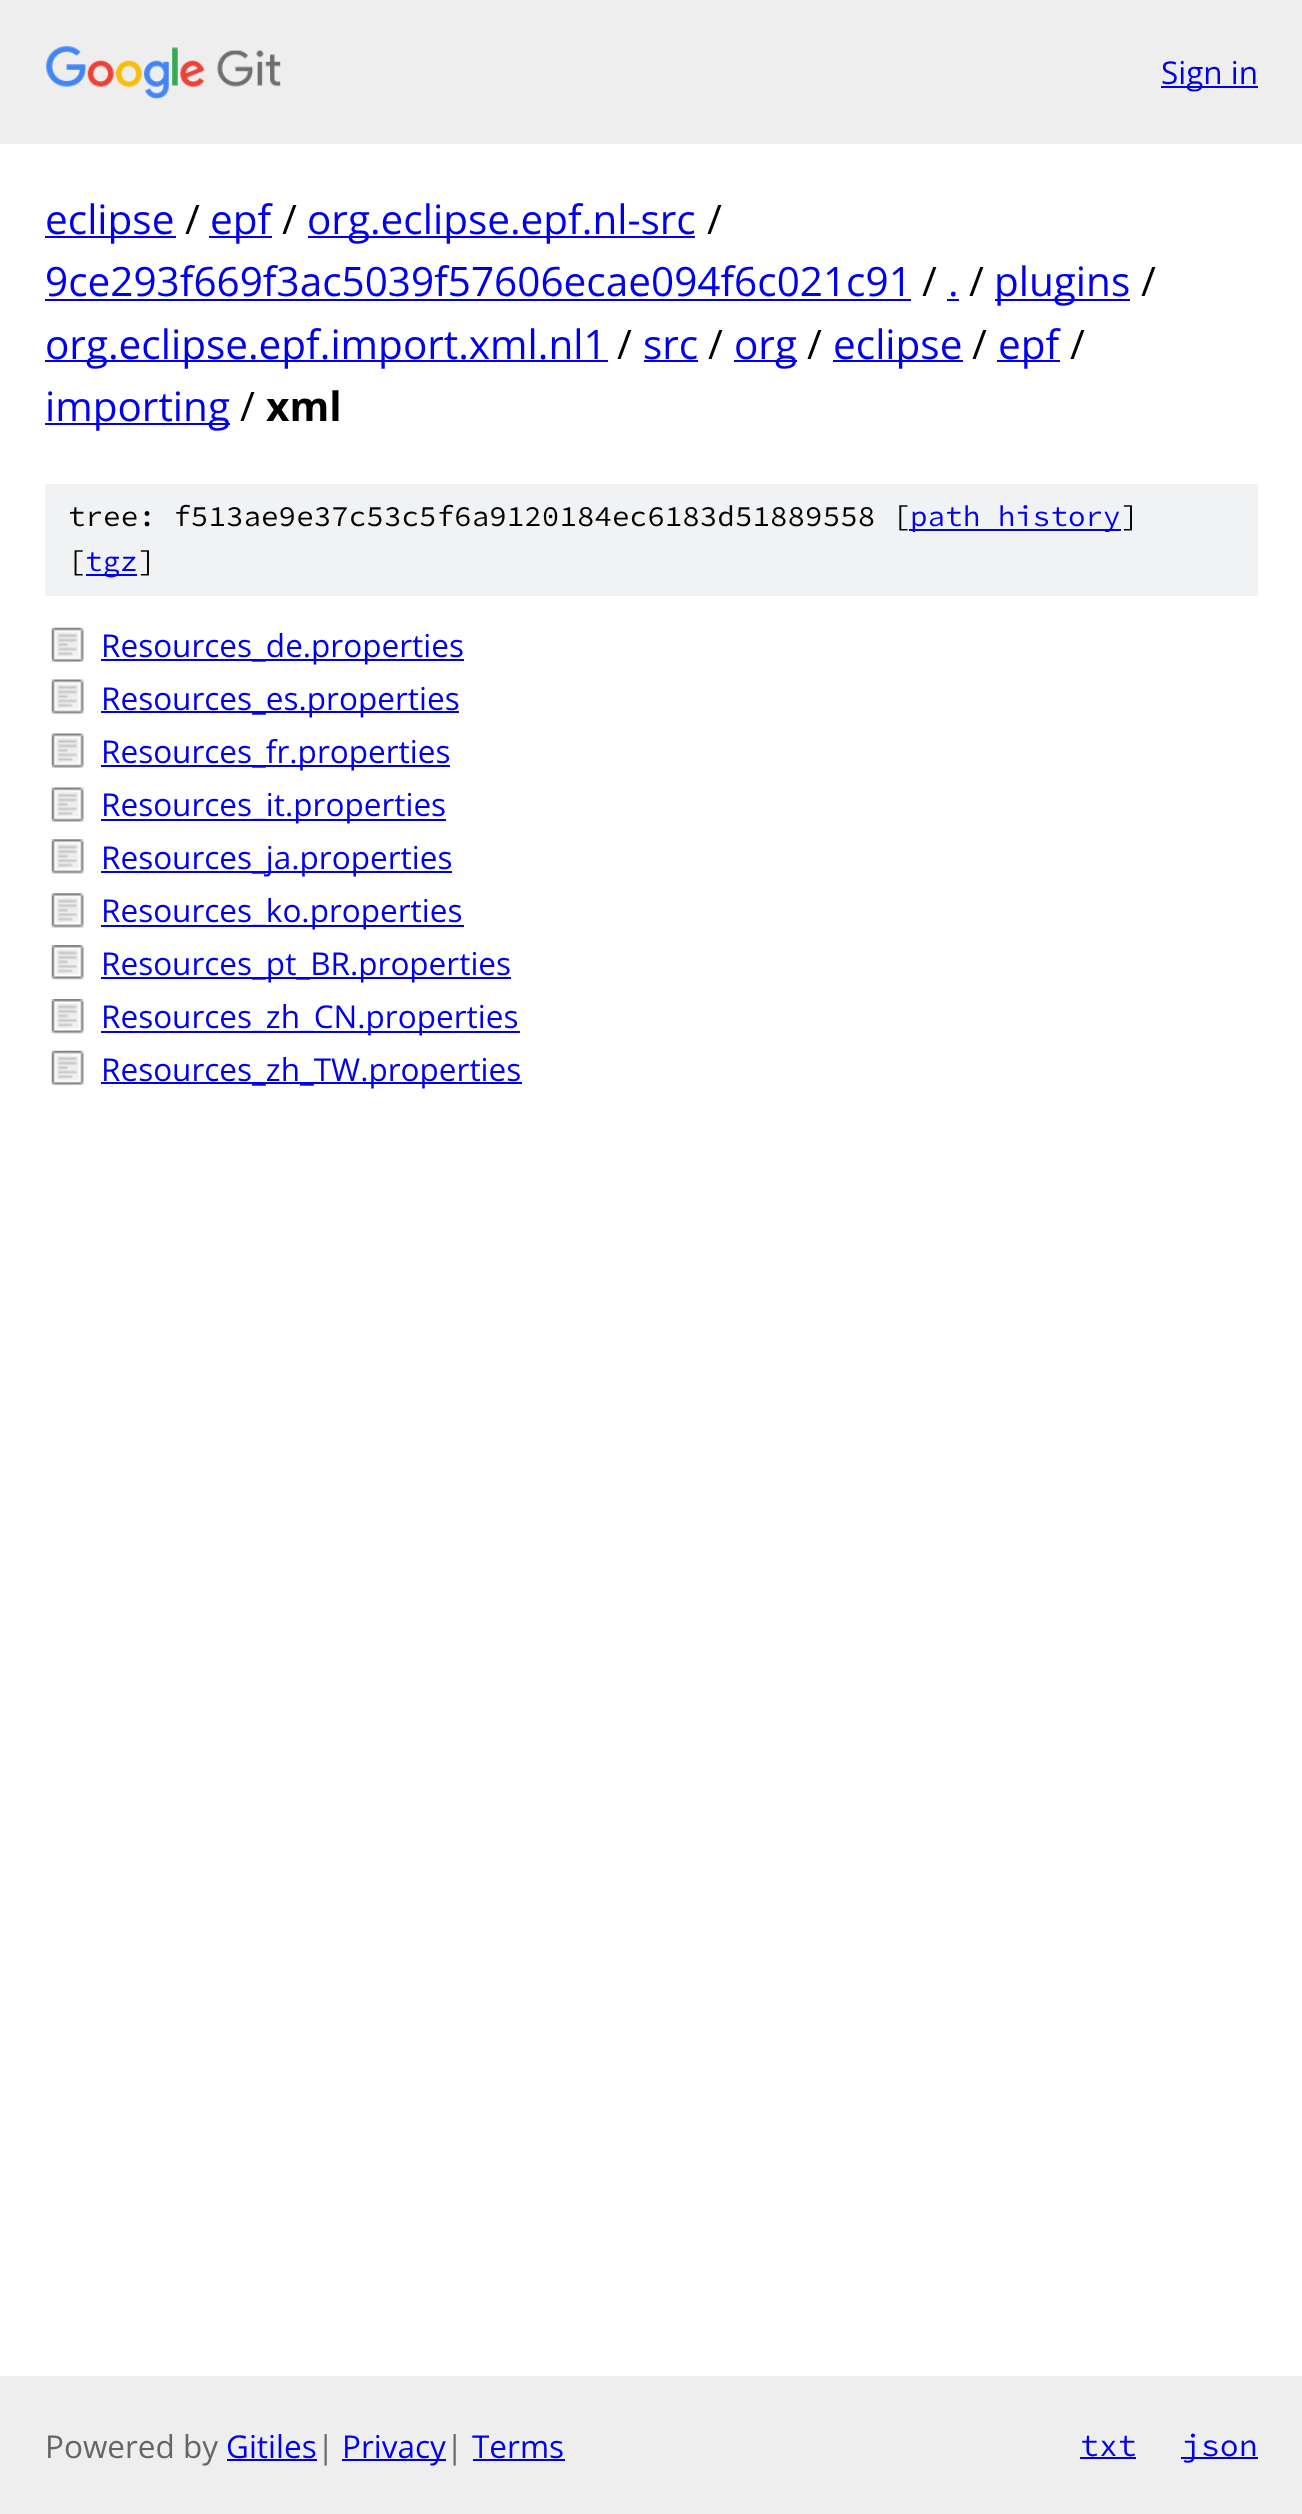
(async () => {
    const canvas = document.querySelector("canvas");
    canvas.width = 1302;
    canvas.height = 2514;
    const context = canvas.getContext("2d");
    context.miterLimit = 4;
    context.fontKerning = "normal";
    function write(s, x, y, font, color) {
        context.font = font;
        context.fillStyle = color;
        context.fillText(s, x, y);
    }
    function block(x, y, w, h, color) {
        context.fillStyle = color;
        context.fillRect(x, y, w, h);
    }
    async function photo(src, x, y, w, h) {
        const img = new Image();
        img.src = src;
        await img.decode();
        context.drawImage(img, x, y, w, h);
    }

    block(0, 0, 1302, 2514, "rgb(255, 255, 255)");
    block(0, 0, 1302, 144, "rgb(238, 238, 238)");
    await photo("media/1.png", 46, 46, 235, 53);
    block(1161, 86, 97, 2, "rgb(0, 0, 238)");
    write("Sign in", 1161, 84, "31.5px Open Sans", "rgb(0, 0, 238)");
    block(45, 236, 131, 2, "rgb(0, 0, 238)");
    write("eclipse", 45, 234, "40.5px Open Sans", "rgb(0, 0, 238)");
    write("/", 185, 234, "40.5px Open Sans", "rgb(0, 0, 0)");
    block(209, 236, 63, 2, "rgb(0, 0, 238)");
    write("epf", 210, 234, "40.5px Open Sans", "rgb(0, 0, 238)");
    write("/", 282, 234, "40.5px Open Sans", "rgb(0, 0, 0)");
    block(308, 236, 387, 2, "rgb(0, 0, 238)");
    write("org.eclipse.epf.nl-src", 307, 234, "40.5px Open Sans", "rgb(0, 0, 238)");
    write("/", 707, 234, "40.5px Open Sans", "rgb(0, 0, 0)");
    write("9ce293f669f3ac5039f57606ecae094f6c021c91", 45, 296, "40.5px Open Sans", "rgb(0, 0, 238)");
    block(45, 299, 866, 2, "rgb(0, 0, 238)");
    write("/", 922, 296, "40.5px Open Sans", "rgb(0, 0, 0)");
    write(".", 948, 296, "40.5px Open Sans", "rgb(0, 0, 238)");
    block(947, 299, 12, 2, "rgb(0, 0, 238)");
    write("/", 969, 296, "40.5px Open Sans", "rgb(0, 0, 0)");
    block(995, 299, 135, 2, "rgb(0, 0, 238)");
    write("plugins", 994, 296, "40.5px Open Sans", "rgb(0, 0, 238)");
    write("/", 1141, 296, "40.5px Open Sans", "rgb(0, 0, 0)");
    block(45, 360, 563, 2, "rgb(0, 0, 238)");
    write("org.eclipse.epf.import.xml.nl1", 45, 359, "40.5px Open Sans", "rgb(0, 0, 238)");
    write("/", 617, 359, "40.5px Open Sans", "rgb(0, 0, 0)");
    write("src", 643, 359, "40.5px Open Sans", "rgb(0, 0, 238)");
    block(644, 360, 54, 2, "rgb(0, 0, 238)");
    write("/", 708, 359, "40.5px Open Sans", "rgb(0, 0, 0)");
    block(734, 360, 63, 2, "rgb(0, 0, 238)");
    write("org", 734, 359, "40.5px Open Sans", "rgb(0, 0, 238)");
    write("/", 807, 359, "40.5px Open Sans", "rgb(0, 0, 0)");
    block(833, 360, 130, 2, "rgb(0, 0, 238)");
    write("eclipse", 833, 359, "40.5px Open Sans", "rgb(0, 0, 238)");
    write("/", 972, 359, "40.5px Open Sans", "rgb(0, 0, 0)");
    block(997, 360, 63, 2, "rgb(0, 0, 238)");
    write("epf", 998, 359, "40.5px Open Sans", "rgb(0, 0, 238)");
    write("/", 1070, 359, "40.5px Open Sans", "rgb(0, 0, 0)");
    block(45, 423, 185, 2, "rgb(0, 0, 238)");
    write("importing", 45, 421, "40.5px Open Sans", "rgb(0, 0, 238)");
    write("/", 240, 421, "40.5px Open Sans", "rgb(0, 0, 0)");
    write("xml", 266, 421, "bold 40.5px Open Sans", "rgb(0, 0, 0)");
    block(45, 484, 1213, 112, "rgb(241, 242, 243)");
    write("tree: f513ae9e37c53c5f6a9120184ec6183d51889558 [", 68, 526, "200 29.25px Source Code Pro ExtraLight", "rgb(0, 0, 0)");
    block(909, 529, 212, 2, "rgb(0, 0, 238)");
    write("path history", 910, 526, "200 29.25px Source Code Pro ExtraLight", "rgb(0, 0, 238)");
    write("]", 1121, 526, "200 29.25px Source Code Pro ExtraLight", "rgb(0, 0, 0)");
    write("[", 68, 571, "200 29.25px Source Code Pro ExtraLight", "rgb(0, 0, 0)");
    block(86, 574, 51, 2, "rgb(0, 0, 238)");
    write("tgz", 85, 571, "200 29.25px Source Code Pro ExtraLight", "rgb(0, 0, 238)");
    write("]", 138, 571, "200 29.25px Source Code Pro ExtraLight", "rgb(0, 0, 0)");
    await photo("media/2.png", 51, 627, 33, 36);
    block(101, 659, 363, 2, "rgb(0, 0, 238)");
    write("Resources_de.properties", 101, 657, "31.5px Open Sans", "rgb(0, 0, 238)");
    await photo("media/3.png", 51, 679, 33, 35);
    block(101, 711, 358, 2, "rgb(0, 0, 238)");
    write("Resources_es.properties", 101, 710, "31.5px Open Sans", "rgb(0, 0, 238)");
    await photo("media/3.png", 51, 733, 33, 35);
    block(101, 765, 349, 2, "rgb(0, 0, 238)");
    write("Resources_fr.properties", 101, 763, "31.5px Open Sans", "rgb(0, 0, 238)");
    await photo("media/3.png", 51, 787, 33, 35);
    block(101, 819, 345, 2, "rgb(0, 0, 238)");
    write("Resources_it.properties", 101, 816, "31.5px Open Sans", "rgb(0, 0, 238)");
    await photo("media/4.png", 51, 839, 33, 35);
    block(101, 871, 351, 2, "rgb(0, 0, 238)");
    write("Resources_ja.properties", 101, 869, "31.5px Open Sans", "rgb(0, 0, 238)");
    await photo("media/4.png", 51, 893, 33, 35);
    block(101, 925, 363, 2, "rgb(0, 0, 238)");
    write("Resources_ko.properties", 101, 922, "31.5px Open Sans", "rgb(0, 0, 238)");
    await photo("media/5.png", 51, 945, 33, 35);
    block(101, 977, 410, 2, "rgb(0, 0, 238)");
    write("Resources_pt_BR.properties", 101, 975, "31.5px Open Sans", "rgb(0, 0, 238)");
    await photo("media/5.png", 51, 999, 33, 35);
    block(101, 1031, 419, 2, "rgb(0, 0, 238)");
    write("Resources_zh_CN.properties", 101, 1028, "31.5px Open Sans", "rgb(0, 0, 238)");
    await photo("media/2.png", 51, 1050, 33, 36);
    block(101, 1082, 421, 2, "rgb(0, 0, 238)");
    write("Resources_zh_TW.properties", 101, 1081, "31.5px Open Sans", "rgb(0, 0, 238)");
    block(0, 2376, 1302, 138, "rgb(238, 238, 238)");
    write("Powered by", 45, 2458, "31.5px Open Sans", "rgb(102, 102, 102)");
    write("Gitiles", 226, 2458, "31.5px Open Sans", "rgb(0, 0, 238)");
    block(227, 2459, 90, 2, "rgb(0, 0, 238)");
    write("|", 317, 2458, "31.5px Open Sans", "rgb(102, 102, 102)");
    block(342, 2459, 104, 2, "rgb(0, 0, 238)");
    write("Privacy", 342, 2458, "31.5px Open Sans", "rgb(0, 0, 238)");
    write("|", 446, 2458, "31.5px Open Sans", "rgb(102, 102, 102)");
    write("Terms", 472, 2458, "31.5px Open Sans", "rgb(0, 0, 238)");
    block(473, 2459, 92, 2, "rgb(0, 0, 238)");
    write("txt", 1080, 2456, "200 31.5px Source Code Pro ExtraLight", "rgb(0, 0, 238)");
    block(1080, 2457, 56, 2, "rgb(0, 0, 238)");
    block(1181, 2457, 77, 2, "rgb(0, 0, 238)");
    write("json", 1182, 2456, "200 31.5px Source Code Pro ExtraLight", "rgb(0, 0, 238)");
})();
